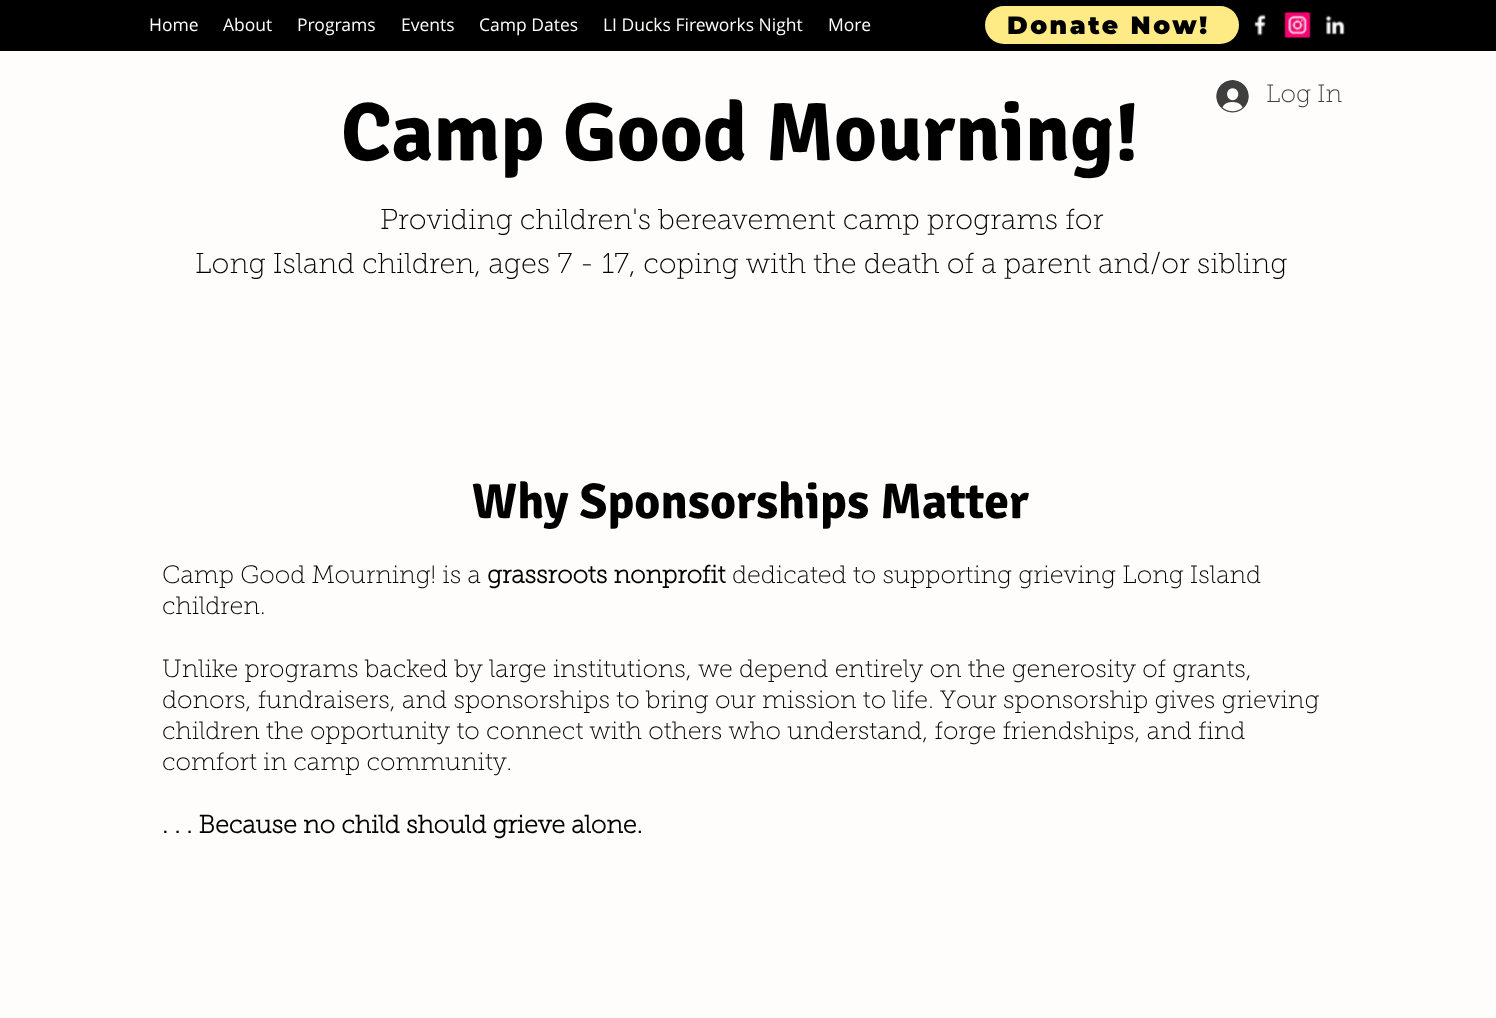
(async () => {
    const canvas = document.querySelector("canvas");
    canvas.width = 1496;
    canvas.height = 1018;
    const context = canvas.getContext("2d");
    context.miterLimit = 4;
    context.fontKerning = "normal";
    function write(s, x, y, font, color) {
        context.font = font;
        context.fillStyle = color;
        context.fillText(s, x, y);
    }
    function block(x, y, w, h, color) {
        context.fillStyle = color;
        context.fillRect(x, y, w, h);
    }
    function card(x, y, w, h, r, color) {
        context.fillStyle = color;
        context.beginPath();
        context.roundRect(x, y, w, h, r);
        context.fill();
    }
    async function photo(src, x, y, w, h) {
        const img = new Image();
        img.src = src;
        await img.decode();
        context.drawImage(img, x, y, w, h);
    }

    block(0, 0, 1496, 1018, "rgb(254, 253, 252)");
    block(0, 0, 1496, 51, "rgb(0, 0, 0)");
    write("Home", 149, 31, "17.5px Open Sans", "rgb(254, 253, 252)");
    write("About", 223, 31, "17.5px Open Sans", "rgb(254, 253, 252)");
    write("Programs", 297, 31, "17.5px Open Sans", "rgb(254, 253, 252)");
    write("Events", 401, 31, "17.5px Open Sans", "rgb(254, 253, 252)");
    write("Camp Dates", 479, 31, "17.5px Open Sans", "rgb(254, 253, 252)");
    write("LI Ducks Fireworks Night", 603, 31, "17.5px Open Sans", "rgb(254, 253, 252)");
    write("More", 828, 31, "17.5px Open Sans", "rgb(254, 253, 252)");
    card(985, 6, 254, 38, 19, "rgb(255, 235, 133)");
    context.letterSpacing = "2.5px";
    write("Donate Now!", 1007, 34, "100 25px Montserrat", "rgb(0, 0, 0)");
    await photo("media/1.png", 1254, 14, 12, 22);
    await photo("media/2.png", 1284, 12, 27, 26);
    await photo("media/3.png", 1325, 15, 20, 20);
    await photo("media/4.png", 1216, 80, 33, 33);
    context.letterSpacing = "0px";
    write("Log In", 1266, 102, "100 25px 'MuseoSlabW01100'", "rgb(64, 63, 63)");
    write("Camp Good Mourning!", 341, 160, "bold 82.5px Signika", "rgb(0, 0, 0)");
    write("Providing children's bereavement camp programs for", 380, 229, "100 28.75px 'MuseoSlabW01100'", "rgb(0, 0, 0)");
    write("Long Island children, ages 7 - 17, coping with the death of a parent and/or sibling", 195, 273, "100 28.75px 'MuseoSlabW01100'", "rgb(0, 0, 0)");
    write("Why Sponsorships Matter", 472, 518, "bold 50px Signika", "rgb(0, 0, 0)");
    write("Camp Good Mourning! is a", 162, 583, "100 25px 'MuseoSlabW01100'", "rgb(0, 0, 0)");
    write("grassroots nonprofit", 487, 583, "bold 25px 'MuseoSlabW01100'", "rgb(0, 0, 0)");
    write("dedicated to supporting grieving Long Island", 732, 583, "100 25px 'MuseoSlabW01100'", "rgb(0, 0, 0)");
    write("children.", 162, 614, "100 25px 'MuseoSlabW01100'", "rgb(0, 0, 0)");
    write("Unlike programs backed by large institutions, we depend entirely on the generosity of grants,", 162, 677, "100 25px 'MuseoSlabW01100'", "rgb(0, 0, 0)");
    write("donors, fundraisers, and sponsorships to bring our mission to life. Your sponsorship gives grieving", 162, 708, "100 25px 'MuseoSlabW01100'", "rgb(0, 0, 0)");
    write("children the opportunity to connect with others who understand, forge friendships, and find", 162, 739, "100 25px 'MuseoSlabW01100'", "rgb(0, 0, 0)");
    write("comfort in camp community.", 162, 770, "100 25px 'MuseoSlabW01100'", "rgb(0, 0, 0)");
    write(". . . Because no child should grieve alone.", 162, 833, "bold 25px 'MuseoSlabW01100'", "rgb(0, 0, 0)");
})();
